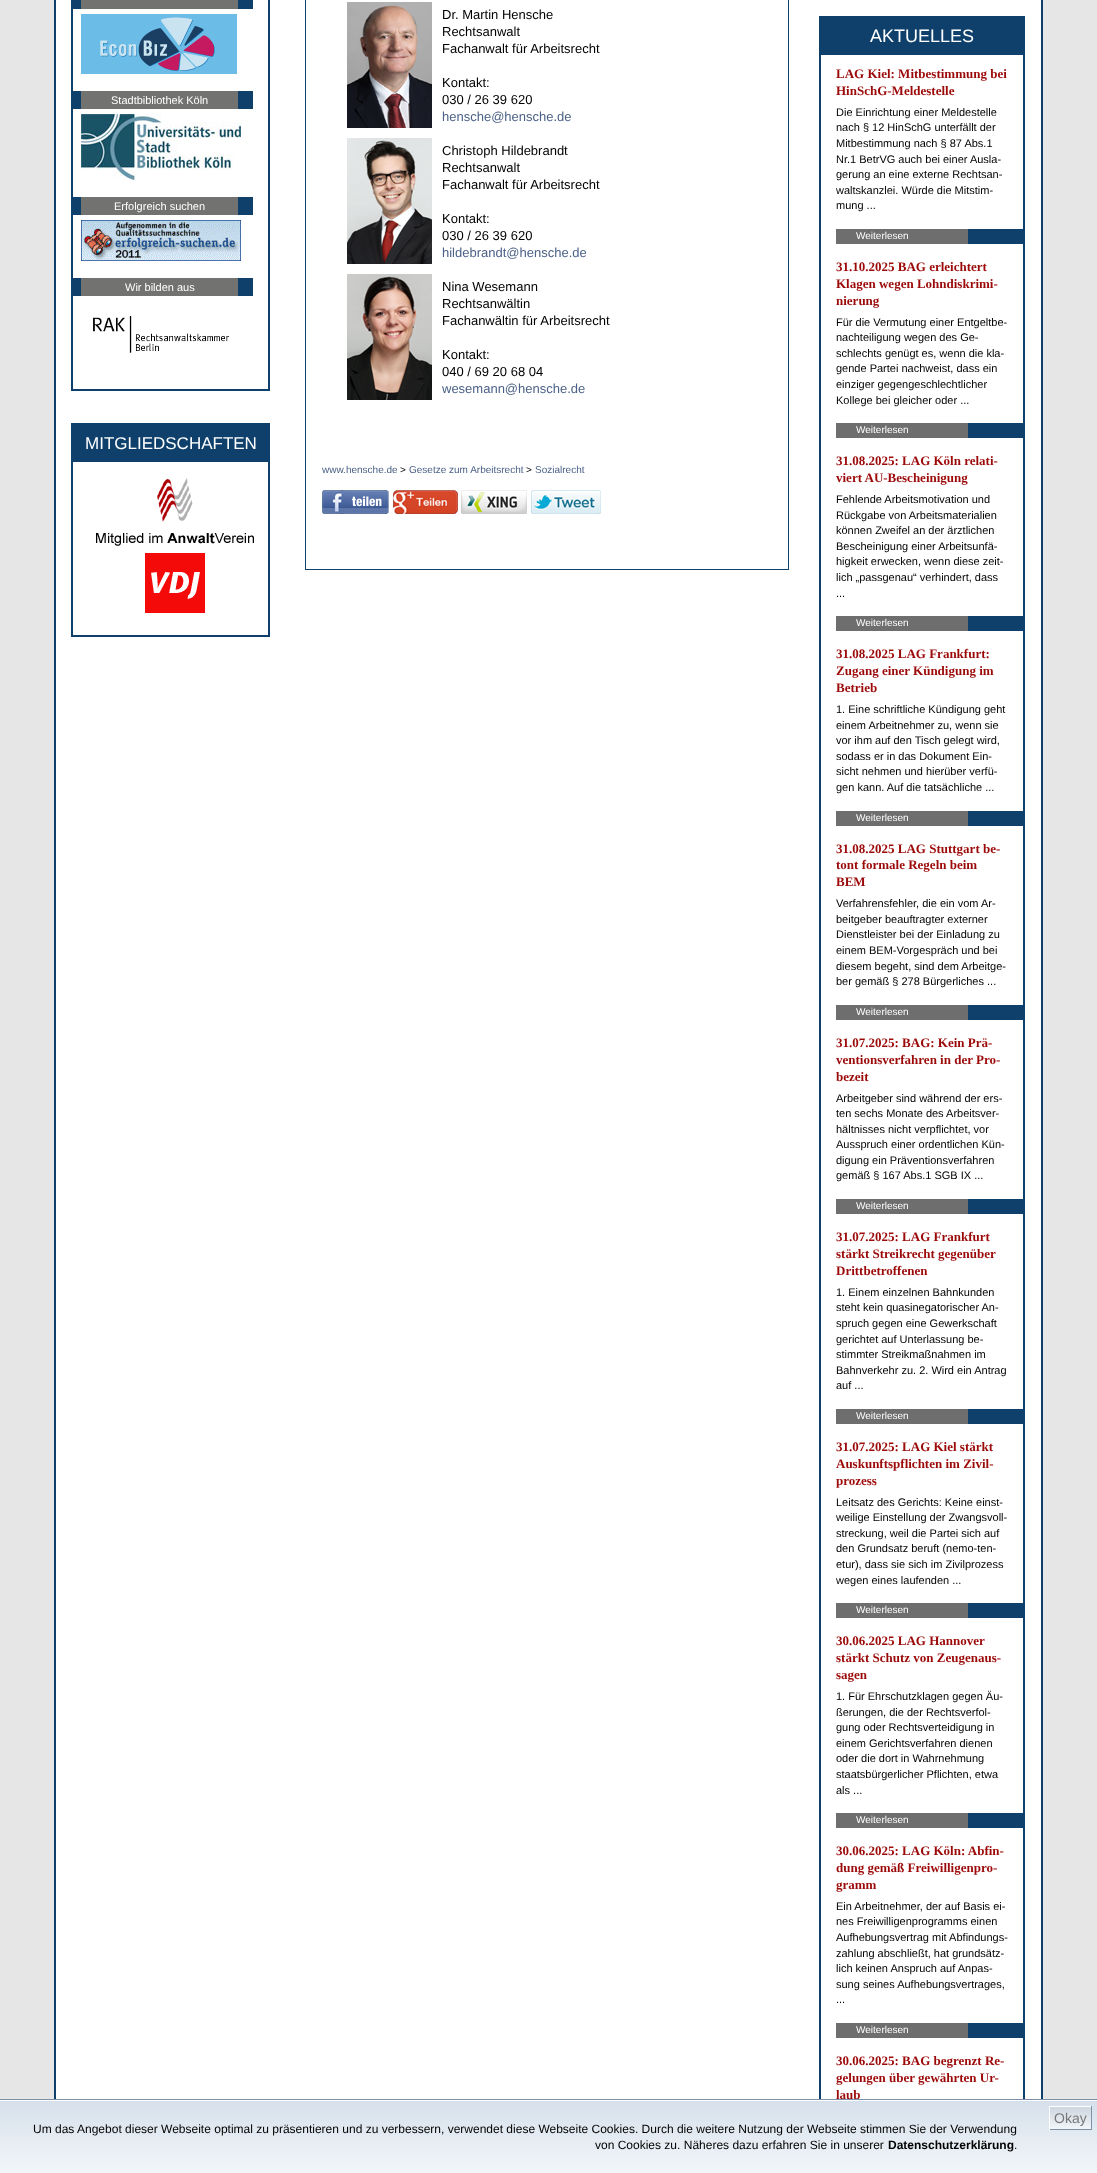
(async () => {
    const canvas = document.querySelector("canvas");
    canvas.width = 1097;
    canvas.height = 2173;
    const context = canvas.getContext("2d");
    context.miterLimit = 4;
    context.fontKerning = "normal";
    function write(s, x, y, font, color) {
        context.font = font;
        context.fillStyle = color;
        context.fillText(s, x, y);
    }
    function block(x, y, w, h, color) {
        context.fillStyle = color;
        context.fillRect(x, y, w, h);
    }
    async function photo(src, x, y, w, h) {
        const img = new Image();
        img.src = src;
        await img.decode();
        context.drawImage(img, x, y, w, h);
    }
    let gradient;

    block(0, 0, 1097, 2173, "rgb(230, 230, 230)");
    block(56, 0, 985, 2099, "rgb(255, 255, 255)");
    block(1041, 0, 2, 2099, "rgb(15, 64, 107)");
    block(54, 0, 2, 2099, "rgb(15, 64, 107)");
    context.strokeStyle = "rgb(15, 64, 107)";
    context.lineWidth = 2;
    context.strokeRect(72, -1, 197, 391);
    block(73, 0, 180, 9, "rgb(15, 64, 107)");
    block(81, 0, 157, 9, "rgb(114, 114, 113)");
    await photo("media/1.png", 81, 14, 156, 60);
    block(73, 91, 180, 18, "rgb(15, 64, 107)");
    block(81, 91, 157, 18, "rgb(114, 114, 113)");
    write("Stadtbibliothek Köln", 111, 104, "11px Liberation Sans", "rgb(255, 255, 255)");
    await photo("media/2.png", 81, 114, 160, 66);
    block(73, 197, 180, 18, "rgb(15, 64, 107)");
    block(81, 197, 157, 18, "rgb(114, 114, 113)");
    write("Erfolgreich suchen", 114, 210, "11px Liberation Sans", "rgb(255, 255, 255)");
    await photo("media/3.png", 81, 220, 160, 41);
    block(73, 278, 180, 18, "rgb(15, 64, 107)");
    block(81, 278, 157, 18, "rgb(114, 114, 113)");
    write("Wir bilden aus", 125, 291, "11px Liberation Sans", "rgb(255, 255, 255)");
    await photo("media/4.png", 93, 316, 136, 37);
    context.strokeRect(72, 424, 197, 212);
    block(73, 425, 195, 37, "rgb(15, 64, 107)");
    write("MITGLIEDSCHAFTEN", 85, 449, "17px Liberation Sans", "rgb(255, 255, 255)");
    await photo("media/5.png", 96, 478, 158, 68);
    await photo("media/6.png", 145, 553, 60, 60);
    context.lineWidth = 1;
    context.strokeRect(305.5, -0.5, 483, 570);
    await photo("media/7.png", 347, 2, 85, 126);
    write("Dr. Martin Hensche", 442, 19, "13px Liberation Sans", "rgb(0, 0, 0)");
    write("Rechtsanwalt", 442, 36, "13px Liberation Sans", "rgb(0, 0, 0)");
    write("Fachanwalt für Arbeitsrecht", 442, 53, "13px Liberation Sans", "rgb(0, 0, 0)");
    write("Kontakt:", 442, 87, "13px Liberation Sans", "rgb(0, 0, 0)");
    write("030 / 26 39 620", 442, 104, "13px Liberation Sans", "rgb(0, 0, 0)");
    write("hensche@hensche.de", 442, 121, "13px Liberation Sans", "rgb(75, 97, 134)");
    await photo("media/8.png", 347, 138, 85, 126);
    write("Christoph Hildebrandt", 442, 155, "13px Liberation Sans", "rgb(0, 0, 0)");
    write("Rechtsanwalt", 442, 172, "13px Liberation Sans", "rgb(0, 0, 0)");
    write("Fachanwalt für Arbeitsrecht", 442, 189, "13px Liberation Sans", "rgb(0, 0, 0)");
    write("Kontakt:", 442, 223, "13px Liberation Sans", "rgb(0, 0, 0)");
    write("030 / 26 39 620", 442, 240, "13px Liberation Sans", "rgb(0, 0, 0)");
    write("hildebrandt@hensche.de", 442, 257, "13px Liberation Sans", "rgb(75, 97, 134)");
    await photo("media/9.png", 347, 274, 85, 126);
    write("Nina Wesemann", 442, 291, "13px Liberation Sans", "rgb(0, 0, 0)");
    write("Rechtsanwältin", 442, 308, "13px Liberation Sans", "rgb(0, 0, 0)");
    write("Fachanwältin für Arbeitsrecht", 442, 325, "13px Liberation Sans", "rgb(0, 0, 0)");
    write("Kontakt:", 442, 359, "13px Liberation Sans", "rgb(0, 0, 0)");
    write("040 / 69 20 68 04", 442, 376, "13px Liberation Sans", "rgb(0, 0, 0)");
    write("wesemann@hensche.de", 442, 393, "13px Liberation Sans", "rgb(75, 97, 134)");
    write("www.hensche.de", 322, 473, "10px Liberation Sans", "rgb(75, 97, 134)");
    write(">", 400, 473, "10px Liberation Sans", "rgb(0, 0, 0)");
    write("Gesetze zum Arbeitsrecht", 409, 473, "10px Liberation Sans", "rgb(75, 97, 134)");
    write(">", 526, 473, "10px Liberation Sans", "rgb(0, 0, 0)");
    write("Sozialrecht", 535, 473, "10px Liberation Sans", "rgb(75, 97, 134)");
    await photo("media/10.png", 322, 490, 67, 24);
    await photo("media/11.png", 393, 490, 65, 24);
    await photo("media/12.png", 461, 490, 66, 24);
    await photo("media/13.png", 531, 490, 70, 24);
    context.lineWidth = 2;
    context.strokeRect(820, 17, 204, 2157);
    block(821, 18, 202, 37, "rgb(15, 64, 107)");
    write("AKTUELLES", 870, 42, "18px Liberation Sans", "rgb(255, 255, 255)");
    write("LAG Kiel: Mitbestimmung bei", 836, 78, "bold 13px Liberation Serif", "rgb(156, 9, 9)");
    write("HinSchG-Meldestelle", 836, 95, "bold 13px Liberation Serif", "rgb(156, 9, 9)");
    write("Die Einrichtung einer Meldestelle", 836, 116, "11px Liberation Sans", "rgb(0, 0, 0)");
    write("nach § 12 HinSchG unterfällt der", 836, 131, "11px Liberation Sans", "rgb(0, 0, 0)");
    write("Mitbestimmung nach § 87 Abs.1", 836, 147, "11px Liberation Sans", "rgb(0, 0, 0)");
    write("Nr.1 BetrVG auch bei einer Ausla-", 836, 163, "11px Liberation Sans", "rgb(0, 0, 0)");
    write("gerung an eine externe Rechtsan-", 836, 178, "11px Liberation Sans", "rgb(0, 0, 0)");
    write("waltskanzlei. Würde die Mitstim-", 836, 194, "11px Liberation Sans", "rgb(0, 0, 0)");
    write("mung ...", 836, 209, "11px Liberation Sans", "rgb(0, 0, 0)");
    block(968, 229, 55, 15, "rgb(15, 64, 107)");
    block(836, 229, 132, 15, "rgb(110, 110, 110)");
    write("Weiterlesen", 856, 239, "10px Liberation Sans", "rgb(255, 255, 255)");
    write("31.10.2025 BAG erleichtert", 836, 271, "bold 13px Liberation Serif", "rgb(156, 9, 9)");
    write("Klagen wegen Lohndiskrimi-", 836, 288, "bold 13px Liberation Serif", "rgb(156, 9, 9)");
    write("nierung", 836, 305, "bold 13px Liberation Serif", "rgb(156, 9, 9)");
    write("Für die Vermutung einer Entgeltbe-", 836, 326, "11px Liberation Sans", "rgb(0, 0, 0)");
    write("nachteiligung wegen des Ge-", 836, 341, "11px Liberation Sans", "rgb(0, 0, 0)");
    write("schlechts genügt es, wenn die kla-", 836, 357, "11px Liberation Sans", "rgb(0, 0, 0)");
    write("gende Partei nachweist, dass ein", 836, 372, "11px Liberation Sans", "rgb(0, 0, 0)");
    write("einziger gegengeschlechtlicher", 836, 388, "11px Liberation Sans", "rgb(0, 0, 0)");
    write("Kollege bei gleicher oder ...", 836, 404, "11px Liberation Sans", "rgb(0, 0, 0)");
    block(968, 423, 55, 15, "rgb(15, 64, 107)");
    block(836, 423, 132, 15, "rgb(110, 110, 110)");
    write("Weiterlesen", 856, 433, "10px Liberation Sans", "rgb(255, 255, 255)");
    write("31.08.2025: LAG Köln relati-", 836, 465, "bold 13px Liberation Serif", "rgb(156, 9, 9)");
    write("viert AU-Bescheinigung", 836, 482, "bold 13px Liberation Serif", "rgb(156, 9, 9)");
    write("Fehlende Arbeitsmotivation und", 836, 503, "11px Liberation Sans", "rgb(0, 0, 0)");
    write("Rückgabe von Arbeitsmaterialien", 836, 519, "11px Liberation Sans", "rgb(0, 0, 0)");
    write("können Zweifel an der ärztlichen", 836, 534, "11px Liberation Sans", "rgb(0, 0, 0)");
    write("Bescheinigung einer Arbeitsunfä-", 836, 550, "11px Liberation Sans", "rgb(0, 0, 0)");
    write("higkeit erwecken, wenn diese zeit-", 836, 565, "11px Liberation Sans", "rgb(0, 0, 0)");
    write("lich „passgenau“ verhindert, dass", 836, 581, "11px Liberation Sans", "rgb(0, 0, 0)");
    write("...", 836, 597, "11px Liberation Sans", "rgb(0, 0, 0)");
    block(968, 616, 55, 15, "rgb(15, 64, 107)");
    block(836, 616, 132, 15, "rgb(110, 110, 110)");
    write("Weiterlesen", 856, 626, "10px Liberation Sans", "rgb(255, 255, 255)");
    write("31.08.2025 LAG Frankfurt:", 836, 658, "bold 13px Liberation Serif", "rgb(156, 9, 9)");
    write("Zugang einer Kündigung im", 836, 675, "bold 13px Liberation Serif", "rgb(156, 9, 9)");
    write("Betrieb", 836, 692, "bold 13px Liberation Serif", "rgb(156, 9, 9)");
    write("1. Eine schriftliche Kündigung geht", 836, 713, "11px Liberation Sans", "rgb(0, 0, 0)");
    write("einem Arbeitnehmer zu, wenn sie", 836, 729, "11px Liberation Sans", "rgb(0, 0, 0)");
    write("vor ihm auf den Tisch gelegt wird,", 836, 744, "11px Liberation Sans", "rgb(0, 0, 0)");
    write("sodass er in das Dokument Ein-", 836, 760, "11px Liberation Sans", "rgb(0, 0, 0)");
    write("sicht nehmen und hierüber verfü-", 836, 775, "11px Liberation Sans", "rgb(0, 0, 0)");
    write("gen kann. Auf die tatsächliche ...", 836, 791, "11px Liberation Sans", "rgb(0, 0, 0)");
    block(968, 811, 55, 15, "rgb(15, 64, 107)");
    block(836, 811, 132, 15, "rgb(110, 110, 110)");
    write("Weiterlesen", 856, 821, "10px Liberation Sans", "rgb(255, 255, 255)");
    write("31.08.2025 LAG Stuttgart be-", 836, 853, "bold 13px Liberation Serif", "rgb(156, 9, 9)");
    write("tont formale Regeln beim", 836, 869, "bold 13px Liberation Serif", "rgb(156, 9, 9)");
    write("BEM", 836, 886, "bold 13px Liberation Serif", "rgb(156, 9, 9)");
    write("Verfahrensfehler, die ein vom Ar-", 836, 907, "11px Liberation Sans", "rgb(0, 0, 0)");
    write("beitgeber beauftragter externer", 836, 923, "11px Liberation Sans", "rgb(0, 0, 0)");
    write("Dienstleister bei der Einladung zu", 836, 938, "11px Liberation Sans", "rgb(0, 0, 0)");
    write("einem BEM-Vorgespräch und bei", 836, 954, "11px Liberation Sans", "rgb(0, 0, 0)");
    write("diesem begeht, sind dem Arbeitge-", 836, 970, "11px Liberation Sans", "rgb(0, 0, 0)");
    write("ber gemäß § 278 Bürgerliches ...", 836, 985, "11px Liberation Sans", "rgb(0, 0, 0)");
    block(968, 1005, 55, 15, "rgb(15, 64, 107)");
    block(836, 1005, 132, 15, "rgb(110, 110, 110)");
    write("Weiterlesen", 856, 1015, "10px Liberation Sans", "rgb(255, 255, 255)");
    write("31.07.2025: BAG: Kein Prä-", 836, 1047, "bold 13px Liberation Serif", "rgb(156, 9, 9)");
    write("ventionsverfahren in der Pro-", 836, 1064, "bold 13px Liberation Serif", "rgb(156, 9, 9)");
    write("bezeit", 836, 1081, "bold 13px Liberation Serif", "rgb(156, 9, 9)");
    write("Arbeitgeber sind während der ers-", 836, 1102, "11px Liberation Sans", "rgb(0, 0, 0)");
    write("ten sechs Monate des Arbeitsver-", 836, 1117, "11px Liberation Sans", "rgb(0, 0, 0)");
    write("hältnisses nicht verpflichtet, vor", 836, 1133, "11px Liberation Sans", "rgb(0, 0, 0)");
    write("Ausspruch einer ordentlichen Kün-", 836, 1148, "11px Liberation Sans", "rgb(0, 0, 0)");
    write("digung ein Präventionsverfahren", 836, 1164, "11px Liberation Sans", "rgb(0, 0, 0)");
    write("gemäß § 167 Abs.1 SGB IX ...", 836, 1179, "11px Liberation Sans", "rgb(0, 0, 0)");
    block(968, 1199, 55, 15, "rgb(15, 64, 107)");
    block(836, 1199, 132, 15, "rgb(110, 110, 110)");
    write("Weiterlesen", 856, 1209, "10px Liberation Sans", "rgb(255, 255, 255)");
    write("31.07.2025: LAG Frankfurt", 836, 1241, "bold 13px Liberation Serif", "rgb(156, 9, 9)");
    write("stärkt Streikrecht gegenüber", 836, 1258, "bold 13px Liberation Serif", "rgb(156, 9, 9)");
    write("Drittbetroffenen", 836, 1275, "bold 13px Liberation Serif", "rgb(156, 9, 9)");
    write("1. Einem einzelnen Bahnkunden", 836, 1296, "11px Liberation Sans", "rgb(0, 0, 0)");
    write("steht kein quasinegatorischer An-", 836, 1311, "11px Liberation Sans", "rgb(0, 0, 0)");
    write("spruch gegen eine Gewerkschaft", 836, 1327, "11px Liberation Sans", "rgb(0, 0, 0)");
    write("gerichtet auf Unterlassung be-", 836, 1343, "11px Liberation Sans", "rgb(0, 0, 0)");
    write("stimmter Streikmaßnahmen im", 836, 1358, "11px Liberation Sans", "rgb(0, 0, 0)");
    write("Bahnverkehr zu. 2. Wird ein Antrag", 836, 1374, "11px Liberation Sans", "rgb(0, 0, 0)");
    write("auf ...", 836, 1389, "11px Liberation Sans", "rgb(0, 0, 0)");
    block(968, 1409, 55, 15, "rgb(15, 64, 107)");
    block(836, 1409, 132, 15, "rgb(110, 110, 110)");
    write("Weiterlesen", 856, 1419, "10px Liberation Sans", "rgb(255, 255, 255)");
    write("31.07.2025: LAG Kiel stärkt", 836, 1451, "bold 13px Liberation Serif", "rgb(156, 9, 9)");
    write("Auskunftspflichten im Zivil-", 836, 1468, "bold 13px Liberation Serif", "rgb(156, 9, 9)");
    write("prozess", 836, 1485, "bold 13px Liberation Serif", "rgb(156, 9, 9)");
    write("Leitsatz des Gerichts: Keine einst-", 836, 1506, "11px Liberation Sans", "rgb(0, 0, 0)");
    write("weilige Einstellung der Zwangsvoll-", 836, 1521, "11px Liberation Sans", "rgb(0, 0, 0)");
    write("streckung, weil die Partei sich auf", 836, 1537, "11px Liberation Sans", "rgb(0, 0, 0)");
    write("den Grundsatz beruft (nemo-ten-", 836, 1552, "11px Liberation Sans", "rgb(0, 0, 0)");
    write("etur), dass sie sich im Zivilprozess", 836, 1568, "11px Liberation Sans", "rgb(0, 0, 0)");
    write("wegen eines laufenden ...", 836, 1584, "11px Liberation Sans", "rgb(0, 0, 0)");
    block(968, 1603, 55, 15, "rgb(15, 64, 107)");
    block(836, 1603, 132, 15, "rgb(110, 110, 110)");
    write("Weiterlesen", 856, 1613, "10px Liberation Sans", "rgb(255, 255, 255)");
    write("30.06.2025 LAG Hannover", 836, 1645, "bold 13px Liberation Serif", "rgb(156, 9, 9)");
    write("stärkt Schutz von Zeugenaus-", 836, 1662, "bold 13px Liberation Serif", "rgb(156, 9, 9)");
    write("sagen", 836, 1679, "bold 13px Liberation Serif", "rgb(156, 9, 9)");
    write("1. Für Ehrschutzklagen gegen Äu-", 836, 1700, "11px Liberation Sans", "rgb(0, 0, 0)");
    write("ßerungen, die der Rechtsverfol-", 836, 1716, "11px Liberation Sans", "rgb(0, 0, 0)");
    write("gung oder Rechtsverteidigung in", 836, 1731, "11px Liberation Sans", "rgb(0, 0, 0)");
    write("einem Gerichtsverfahren dienen", 836, 1747, "11px Liberation Sans", "rgb(0, 0, 0)");
    write("oder die dort in Wahrnehmung", 836, 1762, "11px Liberation Sans", "rgb(0, 0, 0)");
    write("staatsbürgerlicher Pflichten, etwa", 836, 1778, "11px Liberation Sans", "rgb(0, 0, 0)");
    write("als ...", 836, 1794, "11px Liberation Sans", "rgb(0, 0, 0)");
    block(968, 1813, 55, 15, "rgb(15, 64, 107)");
    block(836, 1813, 132, 15, "rgb(110, 110, 110)");
    write("Weiterlesen", 856, 1823, "10px Liberation Sans", "rgb(255, 255, 255)");
    write("30.06.2025: LAG Köln: Abfin-", 836, 1855, "bold 13px Liberation Serif", "rgb(156, 9, 9)");
    write("dung gemäß Freiwilligenpro-", 836, 1872, "bold 13px Liberation Serif", "rgb(156, 9, 9)");
    write("gramm", 836, 1889, "bold 13px Liberation Serif", "rgb(156, 9, 9)");
    write("Ein Arbeitnehmer, der auf Basis ei-", 836, 1910, "11px Liberation Sans", "rgb(0, 0, 0)");
    write("nes Freiwilligenprogramms einen", 836, 1925, "11px Liberation Sans", "rgb(0, 0, 0)");
    write("Aufhebungsvertrag mit Abfindungs-", 836, 1941, "11px Liberation Sans", "rgb(0, 0, 0)");
    write("zahlung abschließt, hat grundsätz-", 836, 1957, "11px Liberation Sans", "rgb(0, 0, 0)");
    write("lich keinen Anspruch auf Anpas-", 836, 1972, "11px Liberation Sans", "rgb(0, 0, 0)");
    write("sung seines Aufhebungsvertrages,", 836, 1988, "11px Liberation Sans", "rgb(0, 0, 0)");
    write("...", 836, 2003, "11px Liberation Sans", "rgb(0, 0, 0)");
    block(968, 2023, 55, 15, "rgb(15, 64, 107)");
    block(836, 2023, 132, 15, "rgb(110, 110, 110)");
    write("Weiterlesen", 856, 2033, "10px Liberation Sans", "rgb(255, 255, 255)");
    write("30.06.2025: BAG begrenzt Re-", 836, 2065, "bold 13px Liberation Serif", "rgb(156, 9, 9)");
    write("gelungen über gewährten Ur-", 836, 2082, "bold 13px Liberation Serif", "rgb(156, 9, 9)");
    write("laub", 836, 2099, "bold 13px Liberation Serif", "rgb(156, 9, 9)");
    gradient = context.createLinearGradient(549, 2101, 549, 2173);
    gradient.addColorStop(0, "rgb(214, 224, 235)");
    gradient.addColorStop(1, "rgb(242, 246, 249)");
    context.fillStyle = gradient;
    context.fillRect(0, 2101, 1097, 72);
    block(0, 2100, 1097, 1, "rgb(255, 255, 255)");
    context.strokeStyle = "rgb(123, 146, 169)";
    context.lineWidth = 1;
    context.strokeRect(-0.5, 2099.5, 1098, 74);
    gradient = context.createLinearGradient(1050, 2107, 1050, 2129);
    gradient.addColorStop(0, "rgb(206, 214, 223)");
    gradient.addColorStop(1, "rgb(242, 246, 249)");
    context.fillStyle = gradient;
    context.fillRect(1050, 2107, 41, 22);
    block(1049, 2106, 43, 1, "rgb(255, 255, 255)");
    block(1091, 2106, 1, 24, "rgb(123, 146, 169)");
    block(1049, 2129, 43, 1, "rgb(123, 146, 169)");
    block(1049, 2106, 1, 24, "rgb(255, 255, 255)");
    write("Okay", 1054, 2123, "14px Liberation Sans", "rgb(119, 119, 119)");
    write("Um das Angebot dieser Webseite optimal zu präsentieren und zu verbessern, verwendet diese Webseite Cookies. Durch die weitere Nutzung der Webseite stimmen Sie der Verwendung", 33, 2133, "12px Liberation Sans", "rgb(0, 0, 0)");
    write("von Cookies zu. Näheres dazu erfahren Sie in unserer", 595, 2149, "12px Liberation Sans", "rgb(0, 0, 0)");
    write("Datenschutzerklärung", 888, 2149, "bold 12px Liberation Sans", "rgb(0, 0, 0)");
    write(".", 1014, 2149, "12px Liberation Sans", "rgb(0, 0, 0)");
})();
